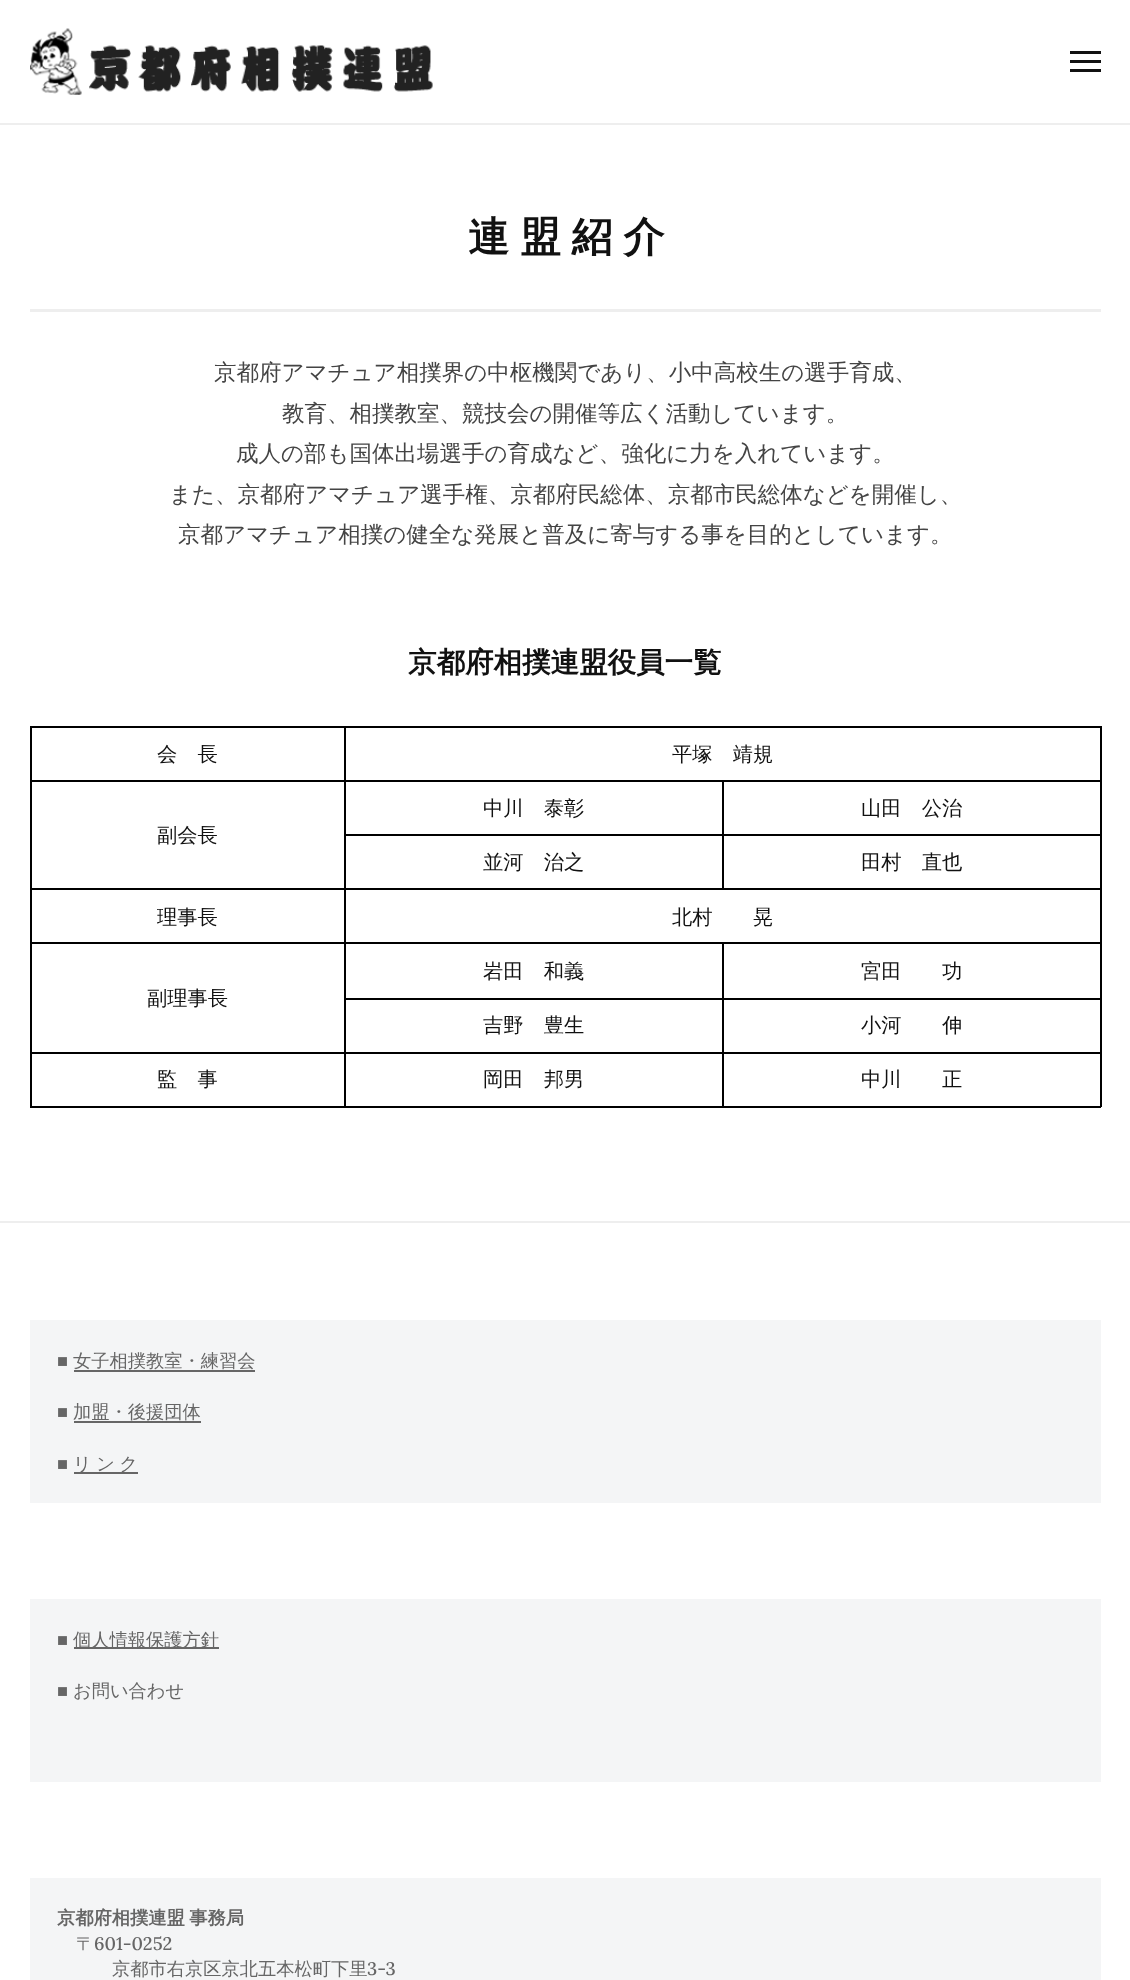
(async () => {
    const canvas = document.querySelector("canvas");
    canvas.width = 1130;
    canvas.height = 1980;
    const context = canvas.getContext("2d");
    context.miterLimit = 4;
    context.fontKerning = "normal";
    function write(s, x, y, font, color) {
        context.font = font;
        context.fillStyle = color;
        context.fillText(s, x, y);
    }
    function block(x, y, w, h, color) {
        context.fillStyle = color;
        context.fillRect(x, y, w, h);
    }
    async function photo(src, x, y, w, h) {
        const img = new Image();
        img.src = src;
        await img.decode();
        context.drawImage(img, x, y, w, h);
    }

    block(0, 0, 1130, 1980, "rgb(255, 255, 255)");
    block(0, 123, 1130, 2, "rgb(238, 238, 238)");
    await photo("media/1.png", 30, 28, 403, 67);
    block(1070, 60, 31, 3, "rgb(17, 17, 17)");
    block(1070, 51, 31, 3, "rgb(17, 17, 17)");
    block(1070, 69, 31, 3, "rgb(17, 17, 17)");
    context.wordSpacing = "-1.5px";
    write("連 盟 紹 介", 468, 251, "bold 41px WenQuanYi Zen Hei", "rgb(17, 17, 17)");
    block(30, 309, 1071, 3, "rgb(238, 238, 238)");
    context.wordSpacing = "0px";
    write("京都府アマチュア相撲界の中枢機関であり、小中高校生の選手育成、", 214, 380, "500 22.5px WenQuanYi Zen Hei", "rgb(68, 68, 68)");
    write("教育、相撲教室、競技会の開催等広く活動しています。", 282, 421, "500 22.5px WenQuanYi Zen Hei", "rgb(68, 68, 68)");
    write("成人の部も国体出場選手の育成など、強化に力を入れています。", 236, 461, "500 22.5px WenQuanYi Zen Hei", "rgb(68, 68, 68)");
    write("また、京都府アマチュア選手権、京都府民総体、京都市民総体などを開催し、", 169, 502, "500 22.5px WenQuanYi Zen Hei", "rgb(68, 68, 68)");
    write("京都アマチュア相撲の健全な発展と普及に寄与する事を目的としています。", 178, 542, "500 22.5px WenQuanYi Zen Hei", "rgb(68, 68, 68)");
    write("京都府相撲連盟役員一覧", 408, 672, "bold 28.5px WenQuanYi Zen Hei", "rgb(17, 17, 17)");
    block(344, 726, 757, 2, "rgb(0, 0, 0)");
    block(722, 780, 379, 2, "rgb(0, 0, 0)");
    block(722, 834, 379, 2, "rgb(0, 0, 0)");
    block(344, 888, 757, 2, "rgb(0, 0, 0)");
    block(722, 834, 2, 56, "rgb(0, 0, 0)");
    block(344, 834, 379, 2, "rgb(0, 0, 0)");
    block(722, 780, 2, 56, "rgb(0, 0, 0)");
    block(344, 780, 379, 2, "rgb(0, 0, 0)");
    block(722, 942, 379, 2, "rgb(0, 0, 0)");
    block(722, 998, 379, 2, "rgb(0, 0, 0)");
    block(722, 1052, 379, 2, "rgb(0, 0, 0)");
    block(1100, 1052, 2, 55, "rgb(0, 0, 0)");
    block(722, 1106, 379, 2, "rgb(0, 0, 0)");
    block(722, 1052, 2, 55, "rgb(0, 0, 0)");
    block(344, 1052, 379, 2, "rgb(0, 0, 0)");
    block(722, 998, 2, 55, "rgb(0, 0, 0)");
    block(344, 998, 379, 2, "rgb(0, 0, 0)");
    block(722, 942, 2, 57, "rgb(0, 0, 0)");
    block(344, 942, 379, 2, "rgb(0, 0, 0)");
    block(344, 1106, 379, 2, "rgb(0, 0, 0)");
    block(344, 1052, 2, 55, "rgb(0, 0, 0)");
    block(30, 1052, 315, 2, "rgb(0, 0, 0)");
    block(344, 998, 2, 55, "rgb(0, 0, 0)");
    block(344, 942, 2, 57, "rgb(0, 0, 0)");
    block(30, 942, 315, 2, "rgb(0, 0, 0)");
    block(344, 888, 2, 56, "rgb(0, 0, 0)");
    block(30, 888, 315, 2, "rgb(0, 0, 0)");
    block(344, 834, 2, 56, "rgb(0, 0, 0)");
    block(344, 780, 2, 56, "rgb(0, 0, 0)");
    block(30, 780, 315, 2, "rgb(0, 0, 0)");
    block(344, 726, 2, 56, "rgb(0, 0, 0)");
    block(30, 726, 315, 2, "rgb(0, 0, 0)");
    block(30, 1106, 315, 2, "rgb(0, 0, 0)");
    block(30, 1052, 2, 55, "rgb(0, 0, 0)");
    block(30, 942, 2, 111, "rgb(0, 0, 0)");
    block(30, 888, 2, 56, "rgb(0, 0, 0)");
    block(30, 780, 2, 110, "rgb(0, 0, 0)");
    block(30, 726, 2, 56, "rgb(0, 0, 0)");
    write("会　長", 157, 761, "500 20.25px WenQuanYi Zen Hei", "rgb(17, 17, 17)");
    block(1100, 998, 2, 55, "rgb(0, 0, 0)");
    block(1100, 942, 2, 57, "rgb(0, 0, 0)");
    block(1100, 888, 2, 56, "rgb(0, 0, 0)");
    block(1100, 834, 2, 56, "rgb(0, 0, 0)");
    block(1100, 780, 2, 56, "rgb(0, 0, 0)");
    block(1100, 726, 2, 56, "rgb(0, 0, 0)");
    write("平塚　靖規", 672, 761, "500 20.25px WenQuanYi Zen Hei", "rgb(17, 17, 17)");
    write("中川　泰彰", 483, 815, "500 20.25px WenQuanYi Zen Hei", "rgb(17, 17, 17)");
    write("山田　公治", 861, 815, "500 20.25px WenQuanYi Zen Hei", "rgb(17, 17, 17)");
    write("副会長", 157, 842, "500 20.25px WenQuanYi Zen Hei", "rgb(17, 17, 17)");
    write("並河　治之", 483, 869, "500 20.25px WenQuanYi Zen Hei", "rgb(17, 17, 17)");
    write("田村　直也", 861, 869, "500 20.25px WenQuanYi Zen Hei", "rgb(17, 17, 17)");
    write("理事長", 157, 924, "500 20.25px WenQuanYi Zen Hei", "rgb(17, 17, 17)");
    write("北村　　晃", 672, 924, "500 20.25px WenQuanYi Zen Hei", "rgb(17, 17, 17)");
    write("岩田　和義", 483, 978, "500 20.25px WenQuanYi Zen Hei", "rgb(17, 17, 17)");
    write("宮田　　功", 861, 978, "500 20.25px WenQuanYi Zen Hei", "rgb(17, 17, 17)");
    write("副理事長", 147, 1005, "500 20.25px WenQuanYi Zen Hei", "rgb(17, 17, 17)");
    write("吉野　豊生", 483, 1032, "500 20.25px WenQuanYi Zen Hei", "rgb(17, 17, 17)");
    write("小河　　伸", 861, 1032, "500 20.25px WenQuanYi Zen Hei", "rgb(17, 17, 17)");
    write("監　事", 157, 1086, "500 20.25px WenQuanYi Zen Hei", "rgb(17, 17, 17)");
    write("岡田　邦男", 483, 1086, "500 20.25px WenQuanYi Zen Hei", "rgb(17, 17, 17)");
    write("中川　　正", 861, 1086, "500 20.25px WenQuanYi Zen Hei", "rgb(17, 17, 17)");
    block(0, 1221, 1130, 2, "rgb(238, 238, 238)");
    block(30, 1320, 1071, 183, "rgb(244, 245, 246)");
    write("■", 57, 1367, "18.25px Liberation Serif", "rgb(102, 102, 102)");
    write("女子相撲教室・練習会", 73, 1367, "500 18.25px WenQuanYi Zen Hei", "rgb(102, 102, 102)");
    block(74, 1370, 181, 2, "rgb(102, 102, 102)");
    write("■", 57, 1418, "18.25px Liberation Serif", "rgb(102, 102, 102)");
    write("加盟・後援団体", 73, 1418, "500 18.25px WenQuanYi Zen Hei", "rgb(102, 102, 102)");
    block(74, 1421, 127, 2, "rgb(102, 102, 102)");
    write("■", 57, 1470, "18.25px Liberation Serif", "rgb(102, 102, 102)");
    block(74, 1472, 64, 2, "rgb(102, 102, 102)");
    context.wordSpacing = "-1px";
    write("リ ン ク", 73, 1470, "500 18.25px WenQuanYi Zen Hei", "rgb(102, 102, 102)");
    block(30, 1599, 1071, 183, "rgb(244, 245, 246)");
    context.wordSpacing = "0px";
    write("■", 57, 1646, "18.25px Liberation Serif", "rgb(102, 102, 102)");
    block(74, 1647, 145, 2, "rgb(102, 102, 102)");
    write("個人情報保護方針", 73, 1646, "500 18.25px WenQuanYi Zen Hei", "rgb(102, 102, 102)");
    write("■", 57, 1697, "18.25px Liberation Serif", "rgb(102, 102, 102)");
    write("お問い合わせ", 73, 1697, "500 18.25px WenQuanYi Zen Hei", "rgb(102, 102, 102)");
    block(30, 1878, 1071, 102, "rgb(244, 245, 246)");
    context.wordSpacing = "-1px";
    write("京都府相撲連盟 事務局", 57, 1924, "bold 18.25px WenQuanYi Zen Hei", "rgb(102, 102, 102)");
    context.wordSpacing = "0px";
    write("〒", 76, 1950, "500 18.25px WenQuanYi Zen Hei", "rgb(102, 102, 102)");
    write("601-0252", 94, 1950, "500 18.25px Lora", "rgb(102, 102, 102)");
    write("京都市右京区京北五本松町下里", 112, 1975, "500 18.25px WenQuanYi Zen Hei", "rgb(102, 102, 102)");
    write("3-3", 367, 1975, "500 18.25px Lora", "rgb(102, 102, 102)");
})();
